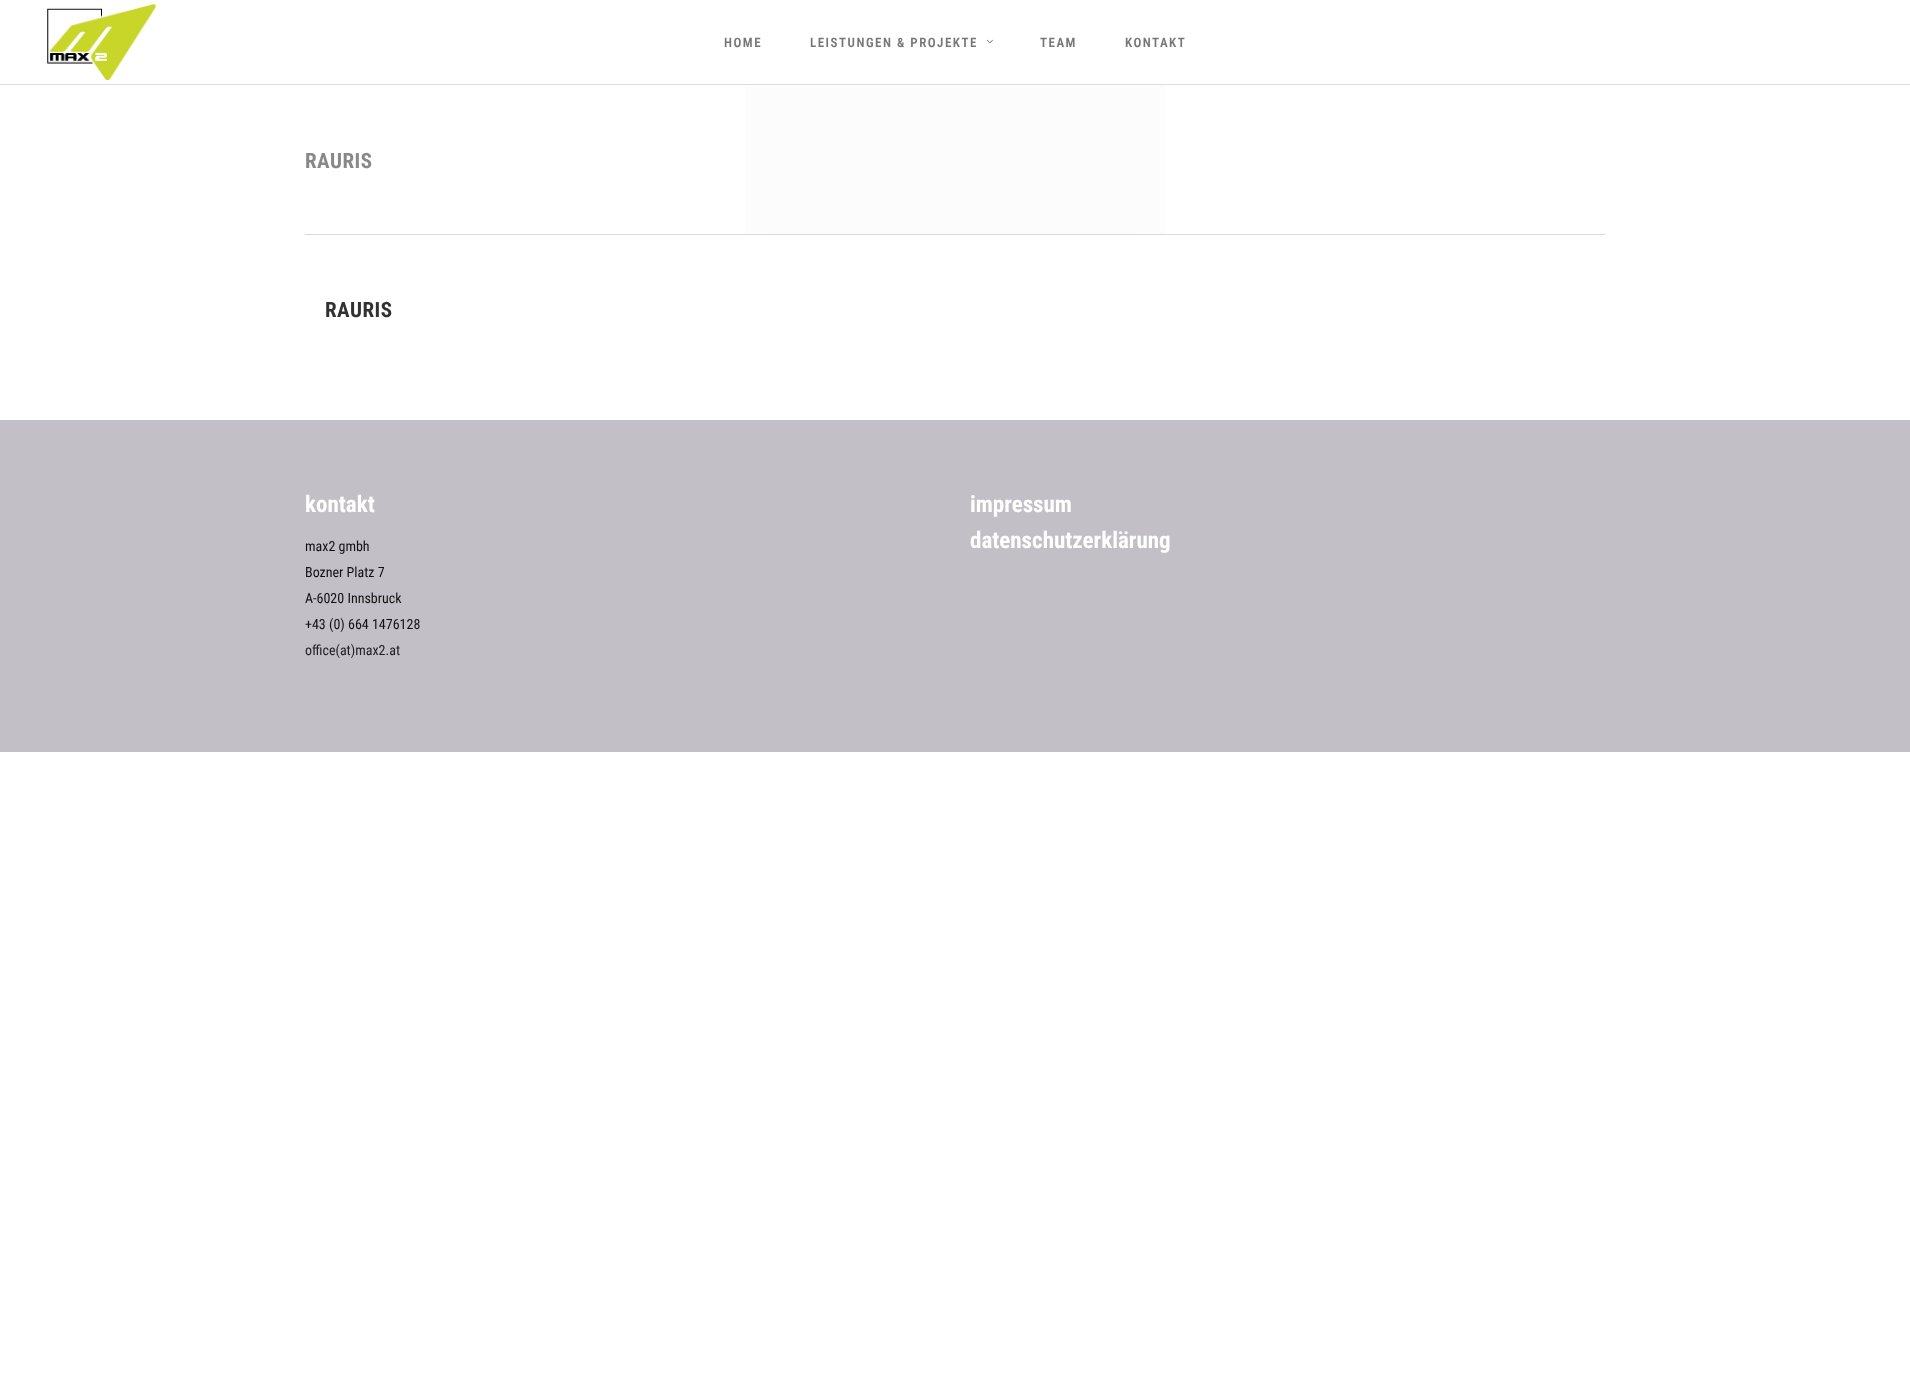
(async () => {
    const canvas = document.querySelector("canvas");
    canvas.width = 1910;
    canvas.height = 1386;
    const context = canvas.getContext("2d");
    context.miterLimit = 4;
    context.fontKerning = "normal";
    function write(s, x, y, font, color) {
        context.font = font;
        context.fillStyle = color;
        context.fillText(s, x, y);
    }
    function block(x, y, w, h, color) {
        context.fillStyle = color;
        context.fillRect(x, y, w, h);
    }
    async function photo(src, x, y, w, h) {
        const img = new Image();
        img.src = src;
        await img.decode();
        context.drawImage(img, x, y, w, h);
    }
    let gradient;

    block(0, 0, 1910, 1386, "rgb(255, 255, 255)");
    block(0, 84, 1910, 1, "rgb(221, 221, 221)");
    await photo("media/1.png", 47, 4, 109, 76);
    context.letterSpacing = "1.5px";
    write("HOME", 724, 47, "600 13px Roboto Condensed", "rgb(119, 119, 119)");
    write("LEISTUNGEN & PROJEKTE", 810, 47, "600 13px Roboto Condensed", "rgb(119, 119, 119)");
    await photo("media/2.png", 986, 39, 7, 5);
    write("TEAM", 1040, 47, "600 13px Roboto Condensed", "rgb(119, 119, 119)");
    write("KONTAKT", 1125, 47, "600 13px Roboto Condensed", "rgb(119, 119, 119)");
    gradient = context.createLinearGradient(0, 160, 1910, 160);
    gradient.addColorStop(0.15, "rgb(255, 255, 255)");
    gradient.addColorStop(0.3, "rgb(254, 254, 254)");
    gradient.addColorStop(0.42, "rgb(252, 252, 252)");
    gradient.addColorStop(0.58, "rgb(252, 252, 252)");
    gradient.addColorStop(0.7, "rgb(254, 254, 254)");
    gradient.addColorStop(0.85, "rgb(255, 255, 255)");
    gradient.addColorStop(1, "rgb(255, 255, 255)");
    context.fillStyle = gradient;
    context.fillRect(745, 85, 420, 150);
    block(305, 234, 1300, 1, "rgb(217, 217, 217)");
    context.letterSpacing = "0.5px";
    write("RAURIS", 305, 168, "bold 21px Roboto Condensed", "rgb(136, 136, 136)");
    write("RAURIS", 325, 317, "bold 21px Roboto Condensed", "rgb(49, 49, 49)");
    block(0, 420, 1910, 332, "rgb(194, 192, 198)");
    context.letterSpacing = "0px";
    write("kontakt", 305, 512, "bold 23px Roboto Condensed", "rgb(255, 255, 255)");
    write("max2 gmbh", 305, 551, "14px Roboto Condensed", "rgb(17, 17, 17)");
    write("Bozner Platz 7", 305, 577, "14px Roboto Condensed", "rgb(17, 17, 17)");
    write("A-6020 Innsbruck", 305, 603, "14px Roboto Condensed", "rgb(17, 17, 17)");
    write("+43 (0) 664 1476128", 305, 629, "14px Roboto Condensed", "rgb(17, 17, 17)");
    write("office(at)max2.at", 305, 655, "14px Roboto Condensed", "rgb(33, 33, 33)");
    write("impressum", 970, 512, "bold 23px Roboto Condensed", "rgb(255, 255, 255)");
    write("datenschutzerklärung", 970, 548, "bold 23px Roboto Condensed", "rgb(255, 255, 255)");
})();
